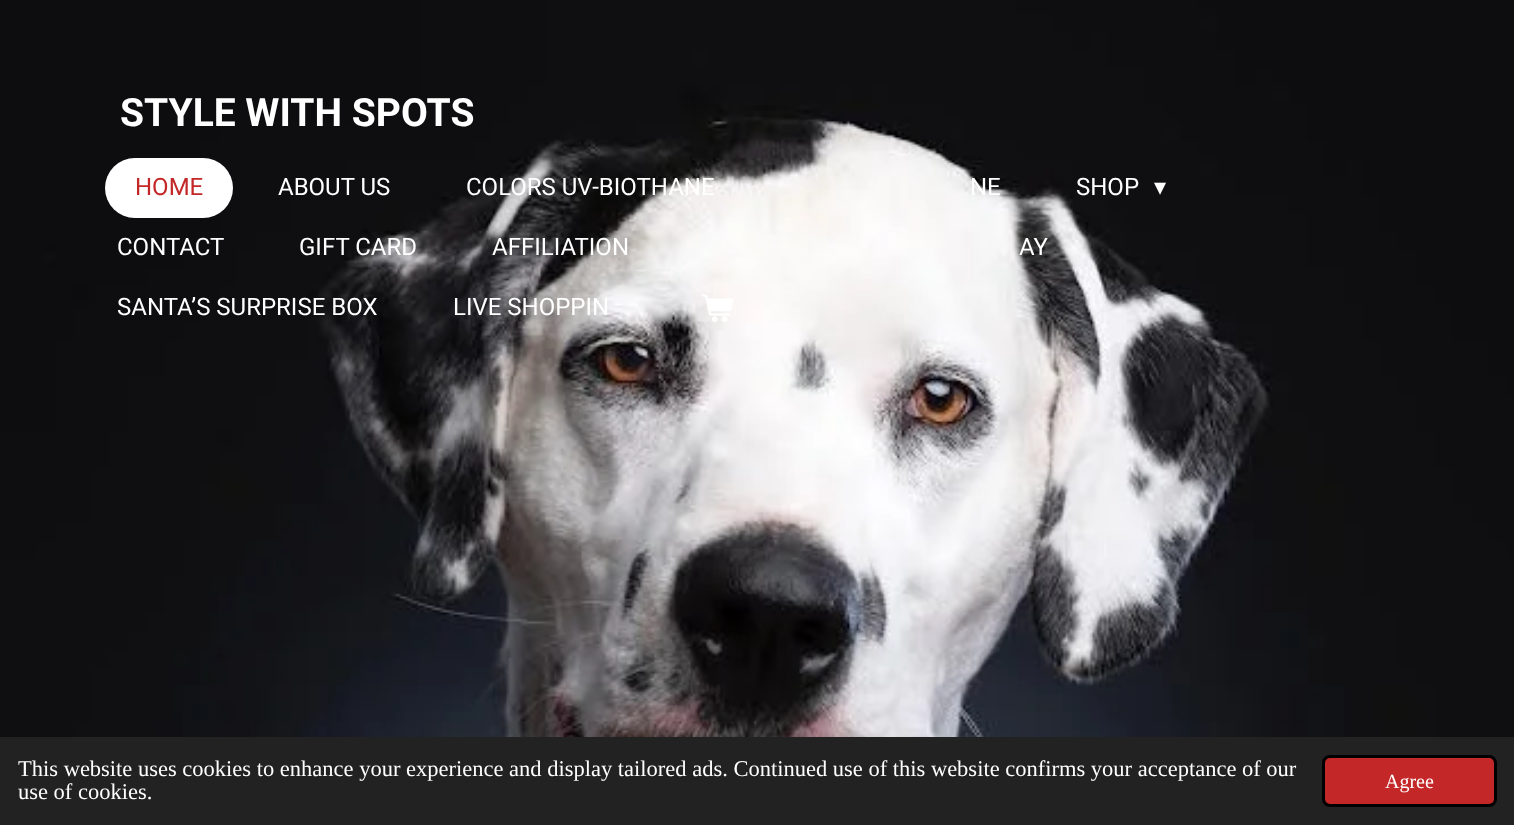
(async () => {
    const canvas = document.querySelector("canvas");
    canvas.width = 1514;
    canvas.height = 825;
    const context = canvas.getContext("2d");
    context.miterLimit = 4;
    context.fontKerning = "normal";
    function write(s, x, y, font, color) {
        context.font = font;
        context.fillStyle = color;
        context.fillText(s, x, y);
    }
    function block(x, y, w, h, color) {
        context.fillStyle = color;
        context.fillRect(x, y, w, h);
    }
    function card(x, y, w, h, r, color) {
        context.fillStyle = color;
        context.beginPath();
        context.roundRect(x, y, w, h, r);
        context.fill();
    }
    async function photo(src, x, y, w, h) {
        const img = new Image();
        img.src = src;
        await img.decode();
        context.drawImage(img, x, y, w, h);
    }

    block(0, 0, 1514, 825, "rgb(255, 255, 255)");
    await photo("media/1.png", 0, 0, 1514, 737);
    write("STYLE WITH SPOTS", 120, 126, "bold 39px Roboto", "rgb(255, 255, 255)");
    card(105, 158, 128, 60, 30, "rgb(255, 255, 255)");
    write("HOME", 135, 195, "24px Roboto", "rgb(196, 39, 39)");
    write("ABOUT US", 278, 195, "24px Roboto", "rgb(255, 255, 255)");
    write("COLORS UV-BIOTHANE", 466, 195, "24px Roboto", "rgb(255, 255, 255)");
    write("NE", 970, 195, "24px Roboto", "rgb(255, 255, 255)");
    write("SHOP", 1076, 195, "24px Roboto", "rgb(255, 255, 255)");
    write("▾", 1154, 195, "24px DejaVu Sans", "rgb(255, 255, 255)");
    write("CONTACT", 117, 255, "24px Roboto", "rgb(255, 255, 255)");
    write("GIFT CARD", 299, 255, "24px Roboto", "rgb(255, 255, 255)");
    write("AFFILIATION", 492, 255, "24px Roboto", "rgb(255, 255, 255)");
    write("AY", 1019, 255, "24px Roboto", "rgb(255, 255, 255)");
    write("SANTA’S SURPRISE BOX", 117, 315, "24px Roboto", "rgb(255, 255, 255)");
    write("LIVE SHOPPIN", 453, 315, "24px Roboto", "rgb(255, 255, 255)");
    await photo("media/2.png", 702, 294, 31, 28);
    block(0, 737, 1514, 88, "rgb(34, 34, 34)");
    write("This website uses cookies to enhance your experience and display tailored ads. Continued use of this website confirms your acceptance of our", 18, 776, "22.5px Liberation Serif", "rgb(255, 255, 255)");
    write("use of cookies.", 18, 799, "22.5px Liberation Serif", "rgb(255, 255, 255)");
    context.fillStyle = "rgb(196, 39, 39)";
    context.beginPath();
    context.roundRect(1323.5, 756.5, 172, 49, 6.5);
    context.fill();
    context.strokeStyle = "rgb(0, 0, 0)";
    context.lineWidth = 3;
    context.stroke();
    write("Agree", 1385, 788, "20px Liberation Serif", "rgb(255, 255, 255)");
})();
